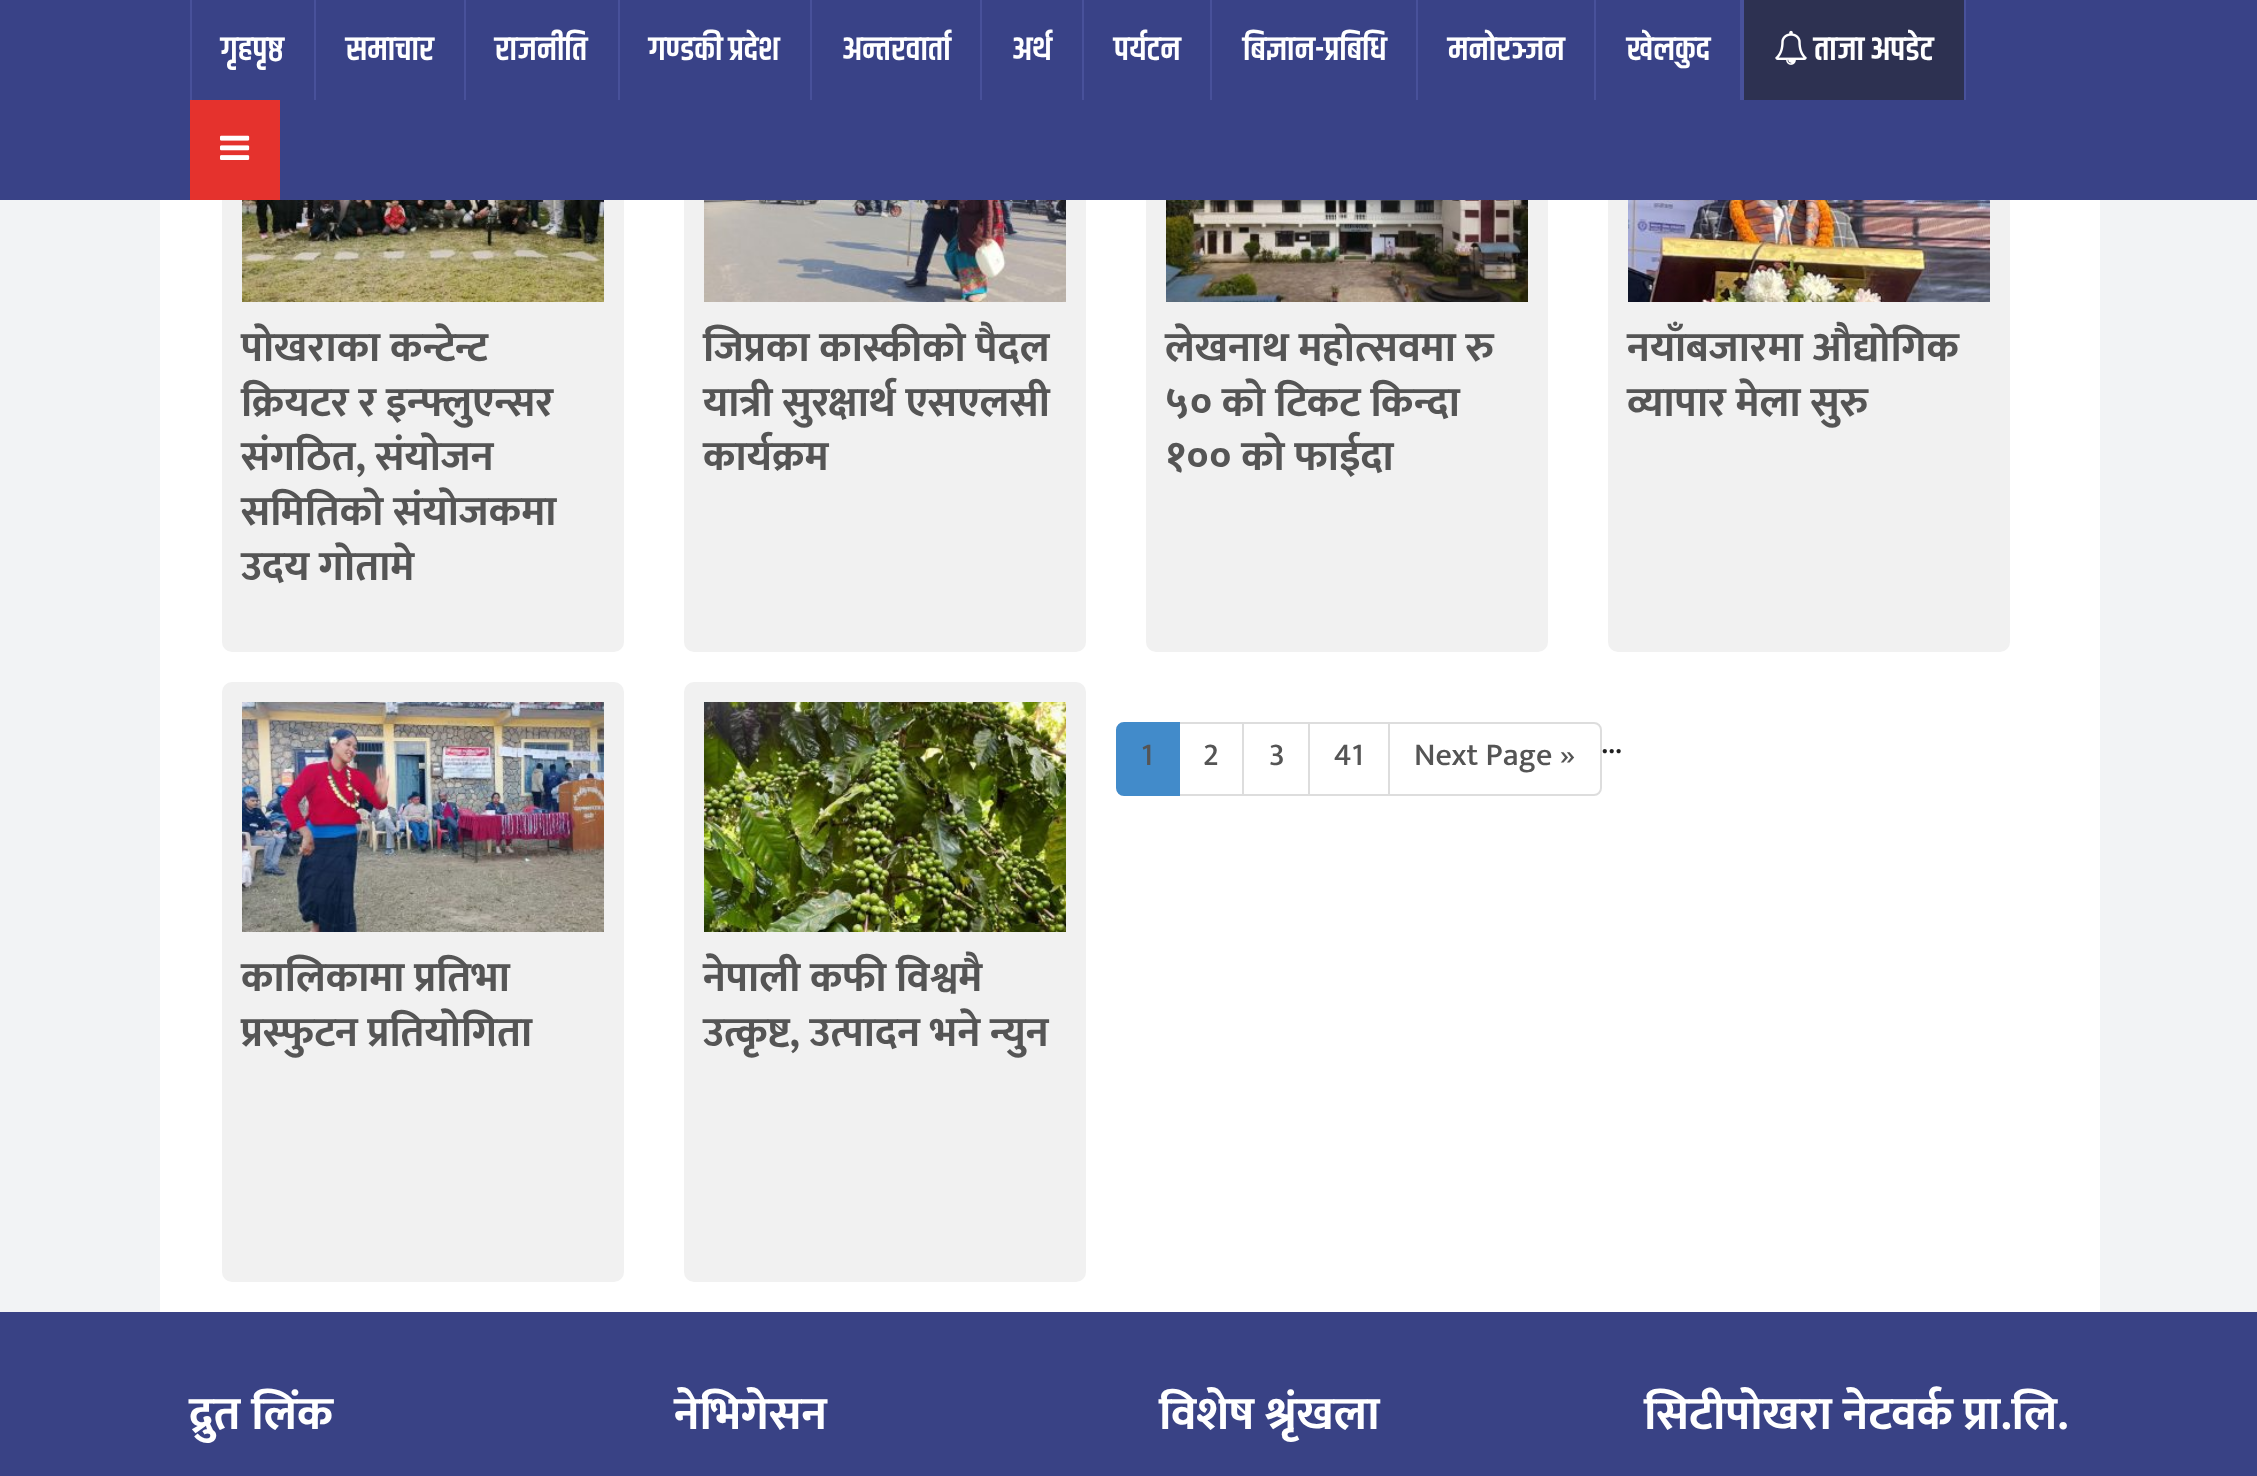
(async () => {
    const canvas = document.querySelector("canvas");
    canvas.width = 2257;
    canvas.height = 1476;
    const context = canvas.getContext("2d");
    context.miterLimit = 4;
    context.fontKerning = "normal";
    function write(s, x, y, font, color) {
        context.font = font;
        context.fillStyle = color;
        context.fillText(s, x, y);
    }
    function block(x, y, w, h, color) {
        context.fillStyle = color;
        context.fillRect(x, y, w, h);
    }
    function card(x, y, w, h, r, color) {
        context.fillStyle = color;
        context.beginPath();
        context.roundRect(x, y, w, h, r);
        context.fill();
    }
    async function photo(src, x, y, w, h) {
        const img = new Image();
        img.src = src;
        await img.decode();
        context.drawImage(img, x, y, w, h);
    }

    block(0, 0, 2257, 1476, "rgb(242, 243, 245)");
    block(160, 200, 1940, 1112, "rgb(255, 255, 255)");
    card(222, 52, 402, 600, 10, "rgb(241, 241, 241)");
    card(684, 52, 402, 600, 10, "rgb(241, 241, 241)");
    card(1146, 52, 402, 600, 10, "rgb(241, 241, 241)");
    card(1608, 52, 402, 600, 10, "rgb(241, 241, 241)");
    block(0, 0, 2257, 200, "rgb(57, 66, 135)");
    block(314, 0, 2, 100, "rgb(72, 81, 154)");
    block(190, 0, 2, 100, "rgb(72, 81, 154)");
    write("गृहपृष्ठ", 221, 60, "600 34px Khand", "rgb(255, 255, 255)");
    block(464, 0, 2, 100, "rgb(72, 81, 154)");
    write("समाचार", 346, 60, "600 34px Khand", "rgb(255, 255, 255)");
    block(618, 0, 2, 100, "rgb(72, 81, 154)");
    write("राजनीति", 495, 60, "600 34px Khand", "rgb(255, 255, 255)");
    block(810, 0, 2, 100, "rgb(72, 81, 154)");
    write("गण्डकी प्रदेश", 649, 60, "600 34px Khand", "rgb(255, 255, 255)");
    block(980, 0, 2, 100, "rgb(72, 81, 154)");
    write("अन्तरवार्ता", 842, 60, "600 34px Khand", "rgb(255, 255, 255)");
    block(1082, 0, 2, 100, "rgb(72, 81, 154)");
    write("अर्थ", 1012, 60, "600 34px Khand", "rgb(255, 255, 255)");
    block(1210, 0, 2, 100, "rgb(72, 81, 154)");
    write("पर्यटन", 1114, 60, "600 34px Khand", "rgb(255, 255, 255)");
    block(1416, 0, 2, 100, "rgb(72, 81, 154)");
    write("बिज्ञान-प्रबिधि", 1243, 60, "600 34px Khand", "rgb(255, 255, 255)");
    block(1594, 0, 2, 100, "rgb(72, 81, 154)");
    write("मनोरञ्जन", 1448, 60, "600 34px Khand", "rgb(255, 255, 255)");
    block(1740, 0, 4, 100, "rgb(72, 81, 154)");
    write("खेलकुद", 1627, 60, "600 34px Khand", "rgb(255, 255, 255)");
    block(1744, 0, 220, 100, "rgb(45, 49, 81)");
    block(1964, 0, 2, 100, "rgb(72, 81, 154)");
    await photo("media/1.png", 1775, 30, 32, 35);
    write("ताजा अपडेट", 1814, 60, "600 34px Khand", "rgb(255, 255, 255)");
    block(190, 100, 90, 100, "rgb(229, 50, 45)");
    await photo("media/2.png", 220, 135, 30, 25);
    await photo("media/3.png", 242, 200, 362, 102);
    write("पोखराका कन्टेन्ट", 241, 361, "bold 42px Mukta", "rgb(85, 85, 85)");
    write("क्रियटर र इन्फ्लुएन्सर", 241, 416, "bold 42px Mukta", "rgb(85, 85, 85)");
    write("संगठित, संयाेजन", 241, 470, "bold 42px Mukta", "rgb(85, 85, 85)");
    write("समितिको संयोजकमा", 241, 525, "bold 42px Mukta", "rgb(85, 85, 85)");
    write("उदय गोतामे", 241, 580, "bold 42px Mukta", "rgb(85, 85, 85)");
    await photo("media/4.png", 704, 200, 362, 102);
    write("जिप्रका कास्कीको पैदल", 703, 361, "bold 42px Mukta", "rgb(85, 85, 85)");
    write("यात्री सुरक्षार्थ एसएलसी", 703, 416, "bold 42px Mukta", "rgb(85, 85, 85)");
    write("कार्यक्रम", 703, 470, "bold 42px Mukta", "rgb(85, 85, 85)");
    await photo("media/5.png", 1166, 200, 362, 102);
    write("लेखनाथ महोत्सवमा रु", 1165, 361, "bold 42px Mukta", "rgb(85, 85, 85)");
    write("५० को टिकट किन्दा", 1165, 416, "bold 42px Mukta", "rgb(85, 85, 85)");
    write("१०० को फाईदा", 1165, 470, "bold 42px Mukta", "rgb(85, 85, 85)");
    await photo("media/6.png", 1628, 200, 362, 102);
    write("नयाँबजारमा औद्योगिक", 1627, 361, "bold 42px Mukta", "rgb(85, 85, 85)");
    write("व्यापार मेला सुरु", 1627, 416, "bold 42px Mukta", "rgb(85, 85, 85)");
    card(222, 682, 402, 600, 10, "rgb(241, 241, 241)");
    await photo("media/7.png", 242, 702, 362, 230);
    write("कालिकामा प्रतिभा", 241, 991, "bold 42px Mukta", "rgb(85, 85, 85)");
    write("प्रस्फुटन प्रतियोगिता", 241, 1046, "bold 42px Mukta", "rgb(85, 85, 85)");
    card(684, 682, 402, 600, 10, "rgb(241, 241, 241)");
    await photo("media/8.png", 704, 702, 362, 230);
    write("नेपाली कफी विश्वमै", 703, 991, "bold 42px Mukta", "rgb(85, 85, 85)");
    write("उत्कृष्ट, उत्पादन भने न्युन", 703, 1046, "bold 42px Mukta", "rgb(85, 85, 85)");
    context.strokeStyle = "rgb(221, 221, 221)";
    context.lineWidth = 2;
    context.strokeRect(1179, 723, 64, 72);
    context.fillStyle = "rgb(66, 139, 202)";
    context.beginPath();
    context.roundRect(1117, 723, 62, 72, [7, 0, 0, 7]);
    context.fill();
    context.strokeStyle = "rgb(66, 139, 202)";
    context.stroke();
    write("1", 1141, 765, "500 32px Mukta", "rgb(85, 85, 85)");
    write("2", 1203, 765, "500 32px Mukta", "rgb(85, 85, 85)");
    context.strokeStyle = "rgb(221, 221, 221)";
    context.strokeRect(1243, 723, 66, 72);
    write("3", 1269, 765, "500 32px Mukta", "rgb(85, 85, 85)");
    context.strokeRect(1309, 723, 80, 72);
    write("41", 1334, 765, "500 32px Mukta", "rgb(85, 85, 85)");
    context.fillStyle = "rgb(255, 255, 255)";
    context.beginPath();
    context.roundRect(1389, 723, 212, 72, [0, 7, 7, 0]);
    context.fill();
    context.stroke();
    write("Next Page »", 1414, 765, "500 32px Mukta", "rgb(85, 85, 85)");
    write("…", 1601, 753, "500 32px Mukta", "rgb(31, 31, 31)");
    block(0, 1312, 2257, 164, "rgb(57, 66, 133)");
    write("द्रुत लिंक", 189, 1429, "bold 46.75px Mukta", "rgb(255, 255, 255)");
    write("नेभिगेसन", 674, 1429, "bold 46.75px Mukta", "rgb(255, 255, 255)");
    write("विशेष श्रृंखला", 1159, 1429, "bold 46.75px Mukta", "rgb(255, 255, 255)");
    write("सिटीपाेखरा नेटवर्क प्रा.लि.", 1644, 1429, "bold 46.75px Mukta", "rgb(255, 255, 255)");
})();
